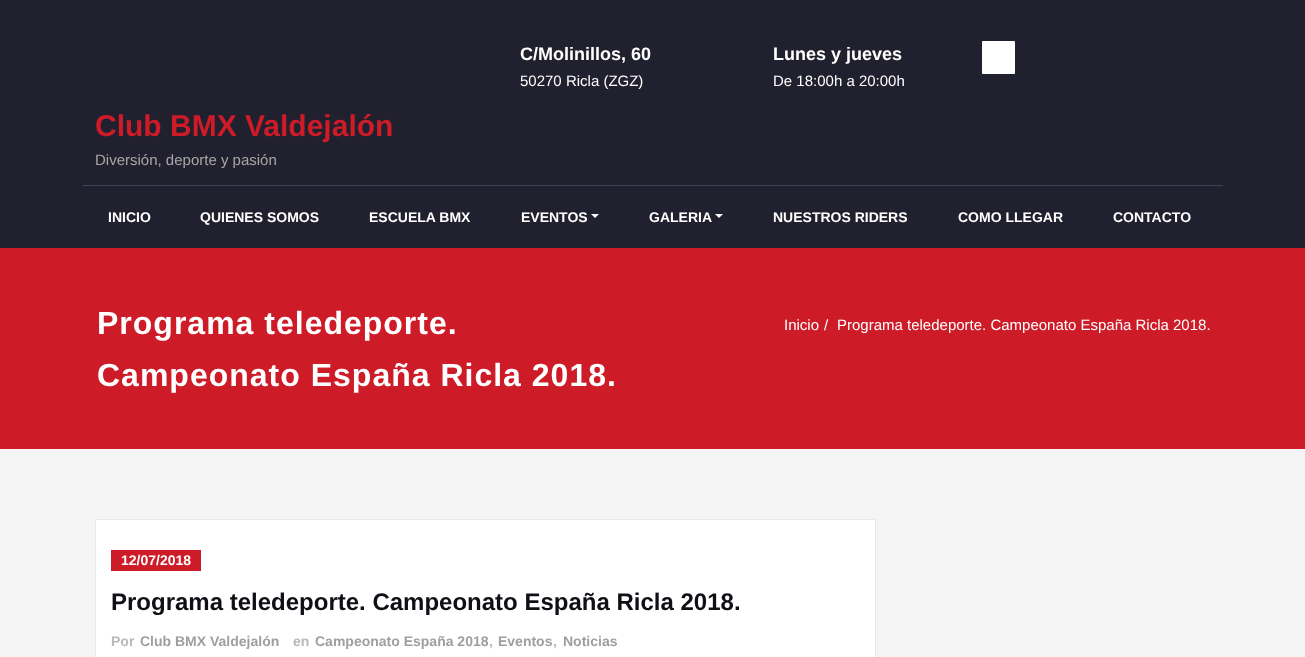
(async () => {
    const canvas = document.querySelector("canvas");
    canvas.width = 1305;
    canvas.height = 657;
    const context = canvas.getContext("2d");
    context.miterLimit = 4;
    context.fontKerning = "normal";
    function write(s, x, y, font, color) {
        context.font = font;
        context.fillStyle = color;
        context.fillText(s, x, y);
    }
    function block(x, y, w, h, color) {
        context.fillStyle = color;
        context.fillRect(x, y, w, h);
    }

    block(0, 0, 1305, 657, "rgb(245, 245, 245)");
    block(0, 0, 1305, 248, "rgb(33, 32, 46)");
    write("C/Molinillos, 60", 520, 60, "bold 18px Liberation Sans", "rgb(255, 255, 255)");
    write("50270 Ricla (ZGZ)", 520, 86, "15px Liberation Sans", "rgb(255, 255, 255)");
    write("Lunes y jueves", 773, 60, "bold 18px Liberation Sans", "rgb(255, 255, 255)");
    write("De 18:00h a 20:00h", 773, 86, "15px Liberation Sans", "rgb(255, 255, 255)");
    context.beginPath();
    context.roundRect(981.5, 40.5, 34, 34, 1.5);
    context.fill();
    context.strokeStyle = "rgb(33, 32, 46)";
    context.stroke();
    write("Club BMX Valdejalón", 95, 136, "bold 30px Liberation Sans", "rgb(206, 27, 40)");
    write("Diversión, deporte y pasión", 95, 165, "15px Liberation Sans", "rgb(167, 167, 167)");
    block(83, 185, 1140, 1, "rgb(67, 65, 88)");
    write("INICIO", 108, 222, "bold 14px Liberation Sans", "rgb(255, 255, 255)");
    write("QUIENES SOMOS", 200, 222, "bold 14px Liberation Sans", "rgb(255, 255, 255)");
    write("ESCUELA BMX", 369, 222, "bold 14px Liberation Sans", "rgb(255, 255, 255)");
    write("EVENTOS", 521, 222, "bold 14px Liberation Sans", "rgb(255, 255, 255)");
    context.beginPath();
    context.moveTo(591, 214);
    context.lineTo(599, 214);
    context.lineTo(595, 218);
    context.closePath();
    context.fill();
    write("GALERIA", 649, 222, "bold 14px Liberation Sans", "rgb(255, 255, 255)");
    context.beginPath();
    context.moveTo(715, 214);
    context.lineTo(723, 214);
    context.lineTo(719, 218);
    context.closePath();
    context.fill();
    write("NUESTROS RIDERS", 773, 222, "bold 14px Liberation Sans", "rgb(255, 255, 255)");
    write("COMO LLEGAR", 958, 222, "bold 14px Liberation Sans", "rgb(255, 255, 255)");
    write("CONTACTO", 1113, 222, "bold 14px Liberation Sans", "rgb(255, 255, 255)");
    block(0, 248, 1305, 201, "rgb(206, 27, 40)");
    context.letterSpacing = "1px";
    write("Programa teledeporte.", 97, 334, "bold 32px Liberation Sans", "rgb(255, 255, 255)");
    write("Campeonato España Ricla 2018.", 97, 386, "bold 32px Liberation Sans", "rgb(255, 255, 255)");
    context.letterSpacing = "0px";
    write("Inicio", 784, 330, "15px Liberation Sans", "rgb(255, 255, 255)");
    write("/", 824, 330, "15px Liberation Sans", "rgb(255, 255, 255)");
    write("Programa teledeporte. Campeonato España Ricla 2018.", 837, 330, "15px Liberation Sans", "rgb(255, 255, 255)");
    context.beginPath();
    context.rect(95.5, 519.5, 780, 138);
    context.fill();
    context.strokeStyle = "rgb(233, 233, 233)";
    context.stroke();
    block(111, 550, 90, 21, "rgb(206, 27, 40)");
    write("12/07/2018", 121, 565, "bold 14px Liberation Sans", "rgb(255, 255, 255)");
    write("Programa teledeporte. Campeonato España Ricla 2018.", 111, 610, "bold 24px Liberation Sans", "rgb(15, 15, 22)");
    write("Por", 111, 646, "bold 14px Liberation Sans", "rgb(185, 185, 185)");
    write("Club BMX Valdejalón", 140, 646, "bold 14px Liberation Sans", "rgb(159, 159, 159)");
    write("en", 293, 646, "bold 14px Liberation Sans", "rgb(185, 185, 185)");
    write("Campeonato España 2018", 315, 646, "bold 14px Liberation Sans", "rgb(159, 159, 159)");
    write(",", 489, 646, "bold 14px Liberation Sans", "rgb(185, 185, 185)");
    write("Eventos", 498, 646, "bold 14px Liberation Sans", "rgb(159, 159, 159)");
    write(",", 553, 646, "bold 14px Liberation Sans", "rgb(185, 185, 185)");
    write("Noticias", 563, 646, "bold 14px Liberation Sans", "rgb(159, 159, 159)");
})();
